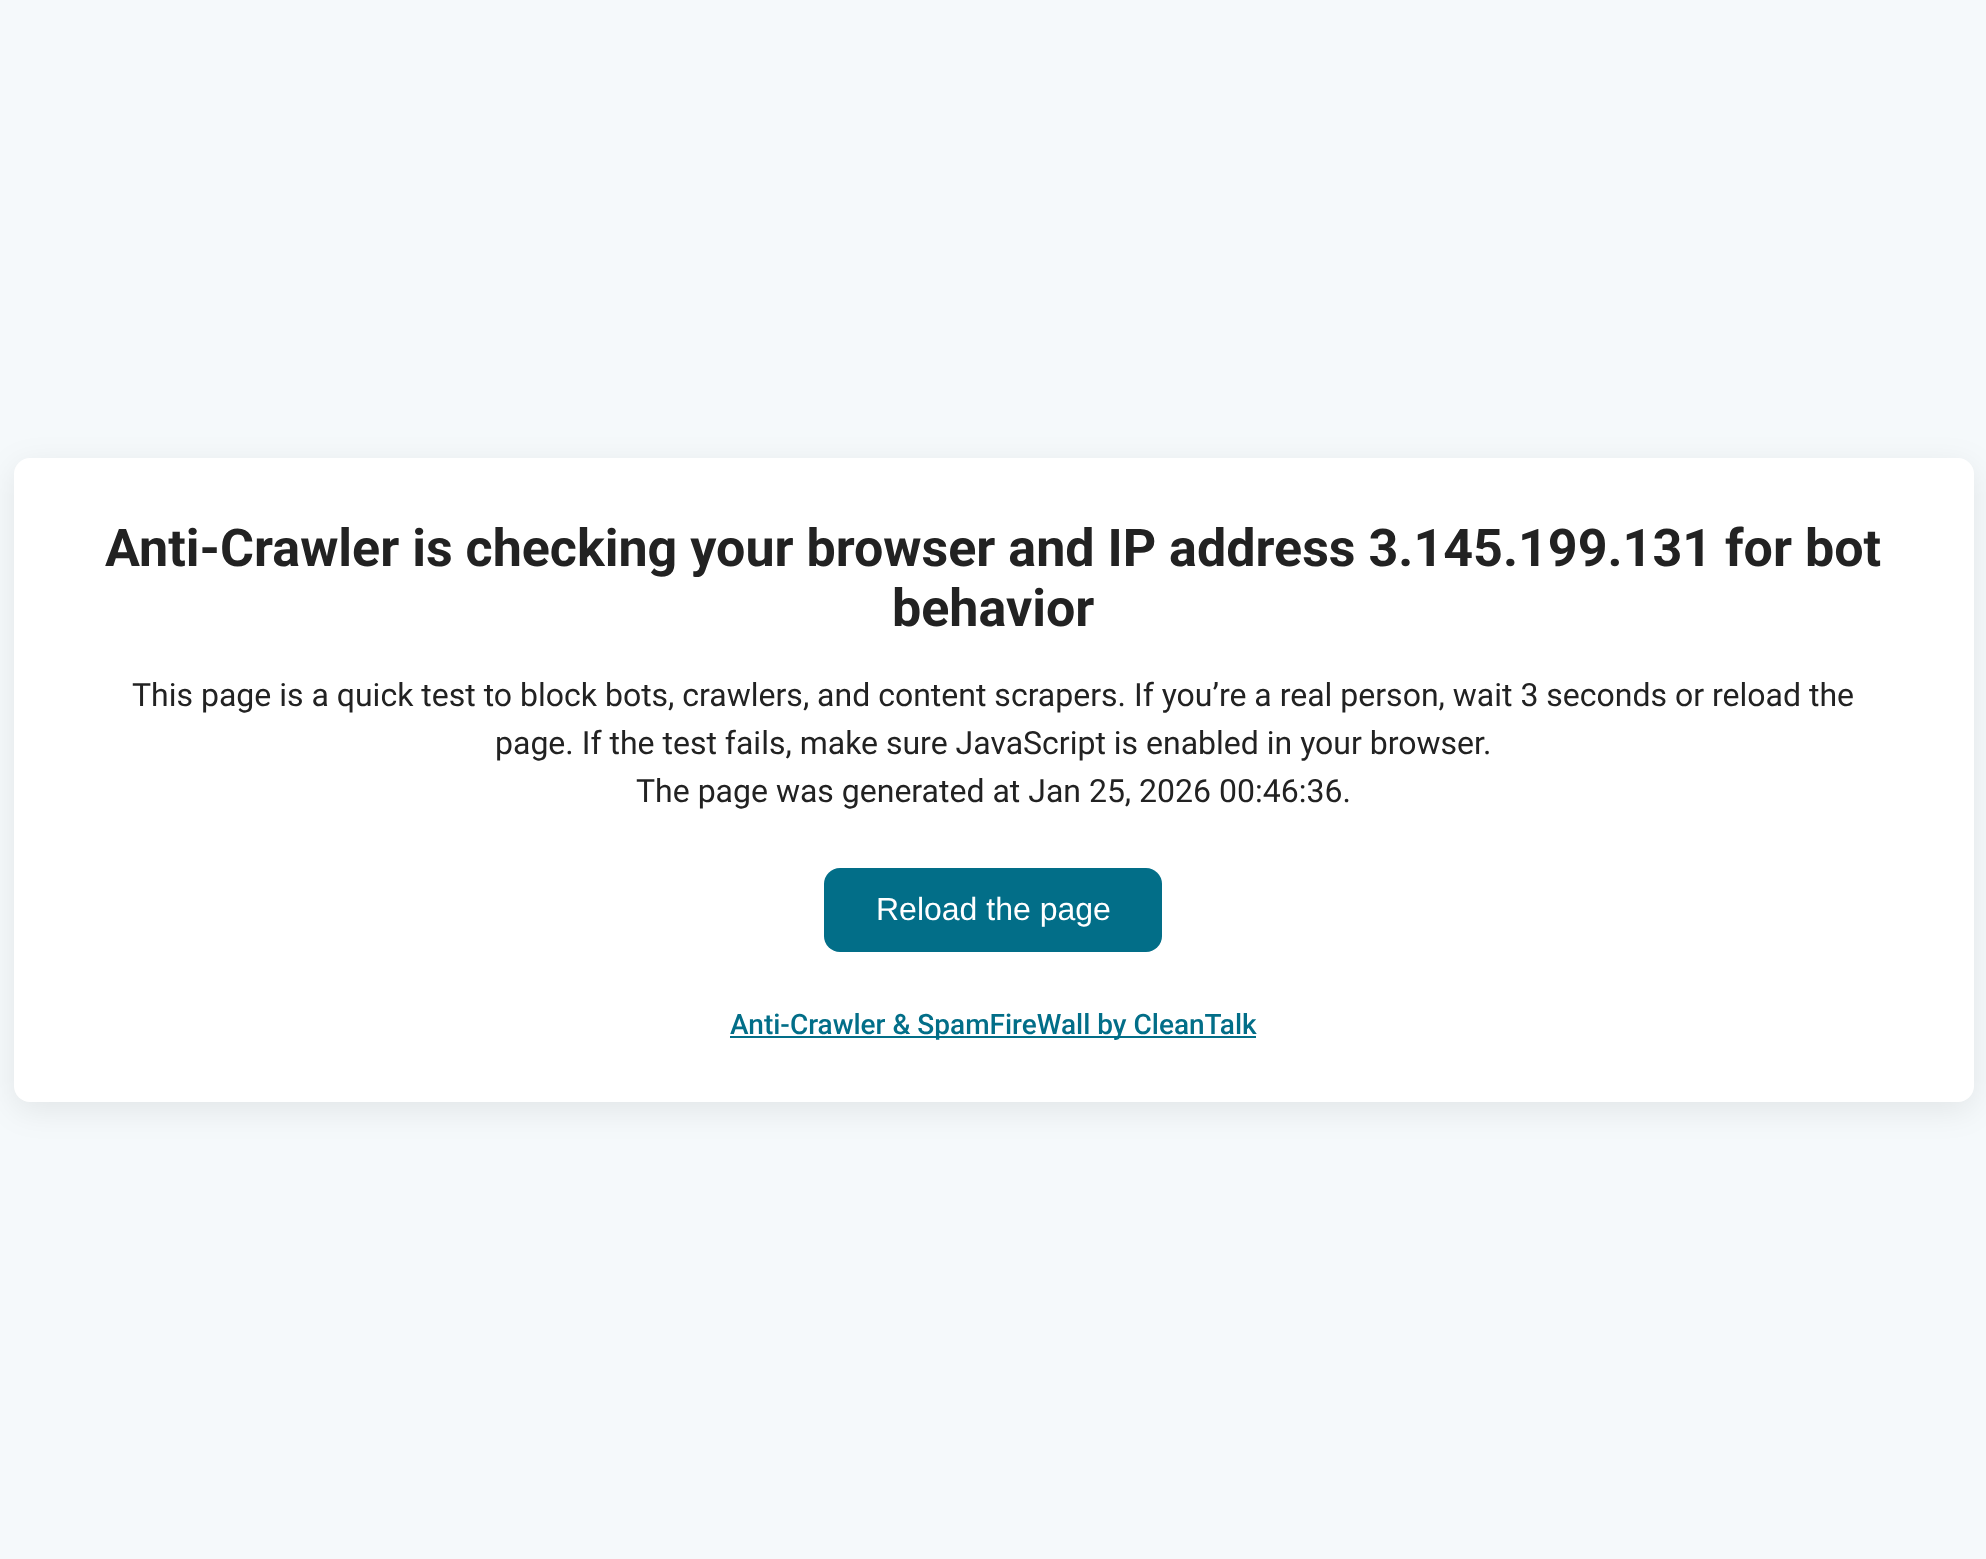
(async () => {
    const canvas = document.querySelector("canvas");
    canvas.width = 1986;
    canvas.height = 1559;
    const context = canvas.getContext("2d");
    context.miterLimit = 4;
    context.fontKerning = "normal";
    function write(s, x, y, font, color) {
        context.font = font;
        context.fillStyle = color;
        context.fillText(s, x, y);
    }
    function block(x, y, w, h, color) {
        context.fillStyle = color;
        context.fillRect(x, y, w, h);
    }
    function card(x, y, w, h, r, color) {
        context.fillStyle = color;
        context.beginPath();
        context.roundRect(x, y, w, h, r);
        context.fill();
    }

    block(0, 0, 1986, 1559, "rgb(245, 249, 251)");
    context.fillStyle = "rgba(0, 0, 0, 0.08)";
    context.filter = "blur(16px)";
    context.beginPath();
    context.roundRect(14, 466, 1960, 644, 16);
    context.fill();
    context.filter = "none";
    card(14, 458, 1960, 644, 16, "rgb(255, 255, 255)");
    write("Anti-Crawler is checking your browser and IP address 3.145.199.131 for bot", 105, 566, "bold 52px Roboto", "rgb(34, 34, 34)");
    write("behavior", 892, 626, "bold 52px Roboto", "rgb(34, 34, 34)");
    write("This page is a quick test to block bots, crawlers, and content scrapers. If you’re a real person, wait 3 seconds or reload the", 132, 706, "32px Roboto", "rgb(34, 34, 34)");
    write("page. If the test fails, make sure JavaScript is enabled in your browser.", 495, 754, "32px Roboto", "rgb(34, 34, 34)");
    write("The page was generated at Jan 25, 2026 00:46:36.", 636, 802, "32px Roboto", "rgb(34, 34, 34)");
    card(824, 868, 338, 84, 16, "rgb(2, 110, 136)");
    write("Reload the page", 876, 920, "32px Liberation Sans", "rgb(255, 255, 255)");
    block(730, 1036, 526, 2, "rgb(2, 110, 136)");
    write("Anti-Crawler & SpamFireWall by CleanTalk", 730, 1034, "500 28px Roboto", "rgb(2, 110, 136)");
})();
